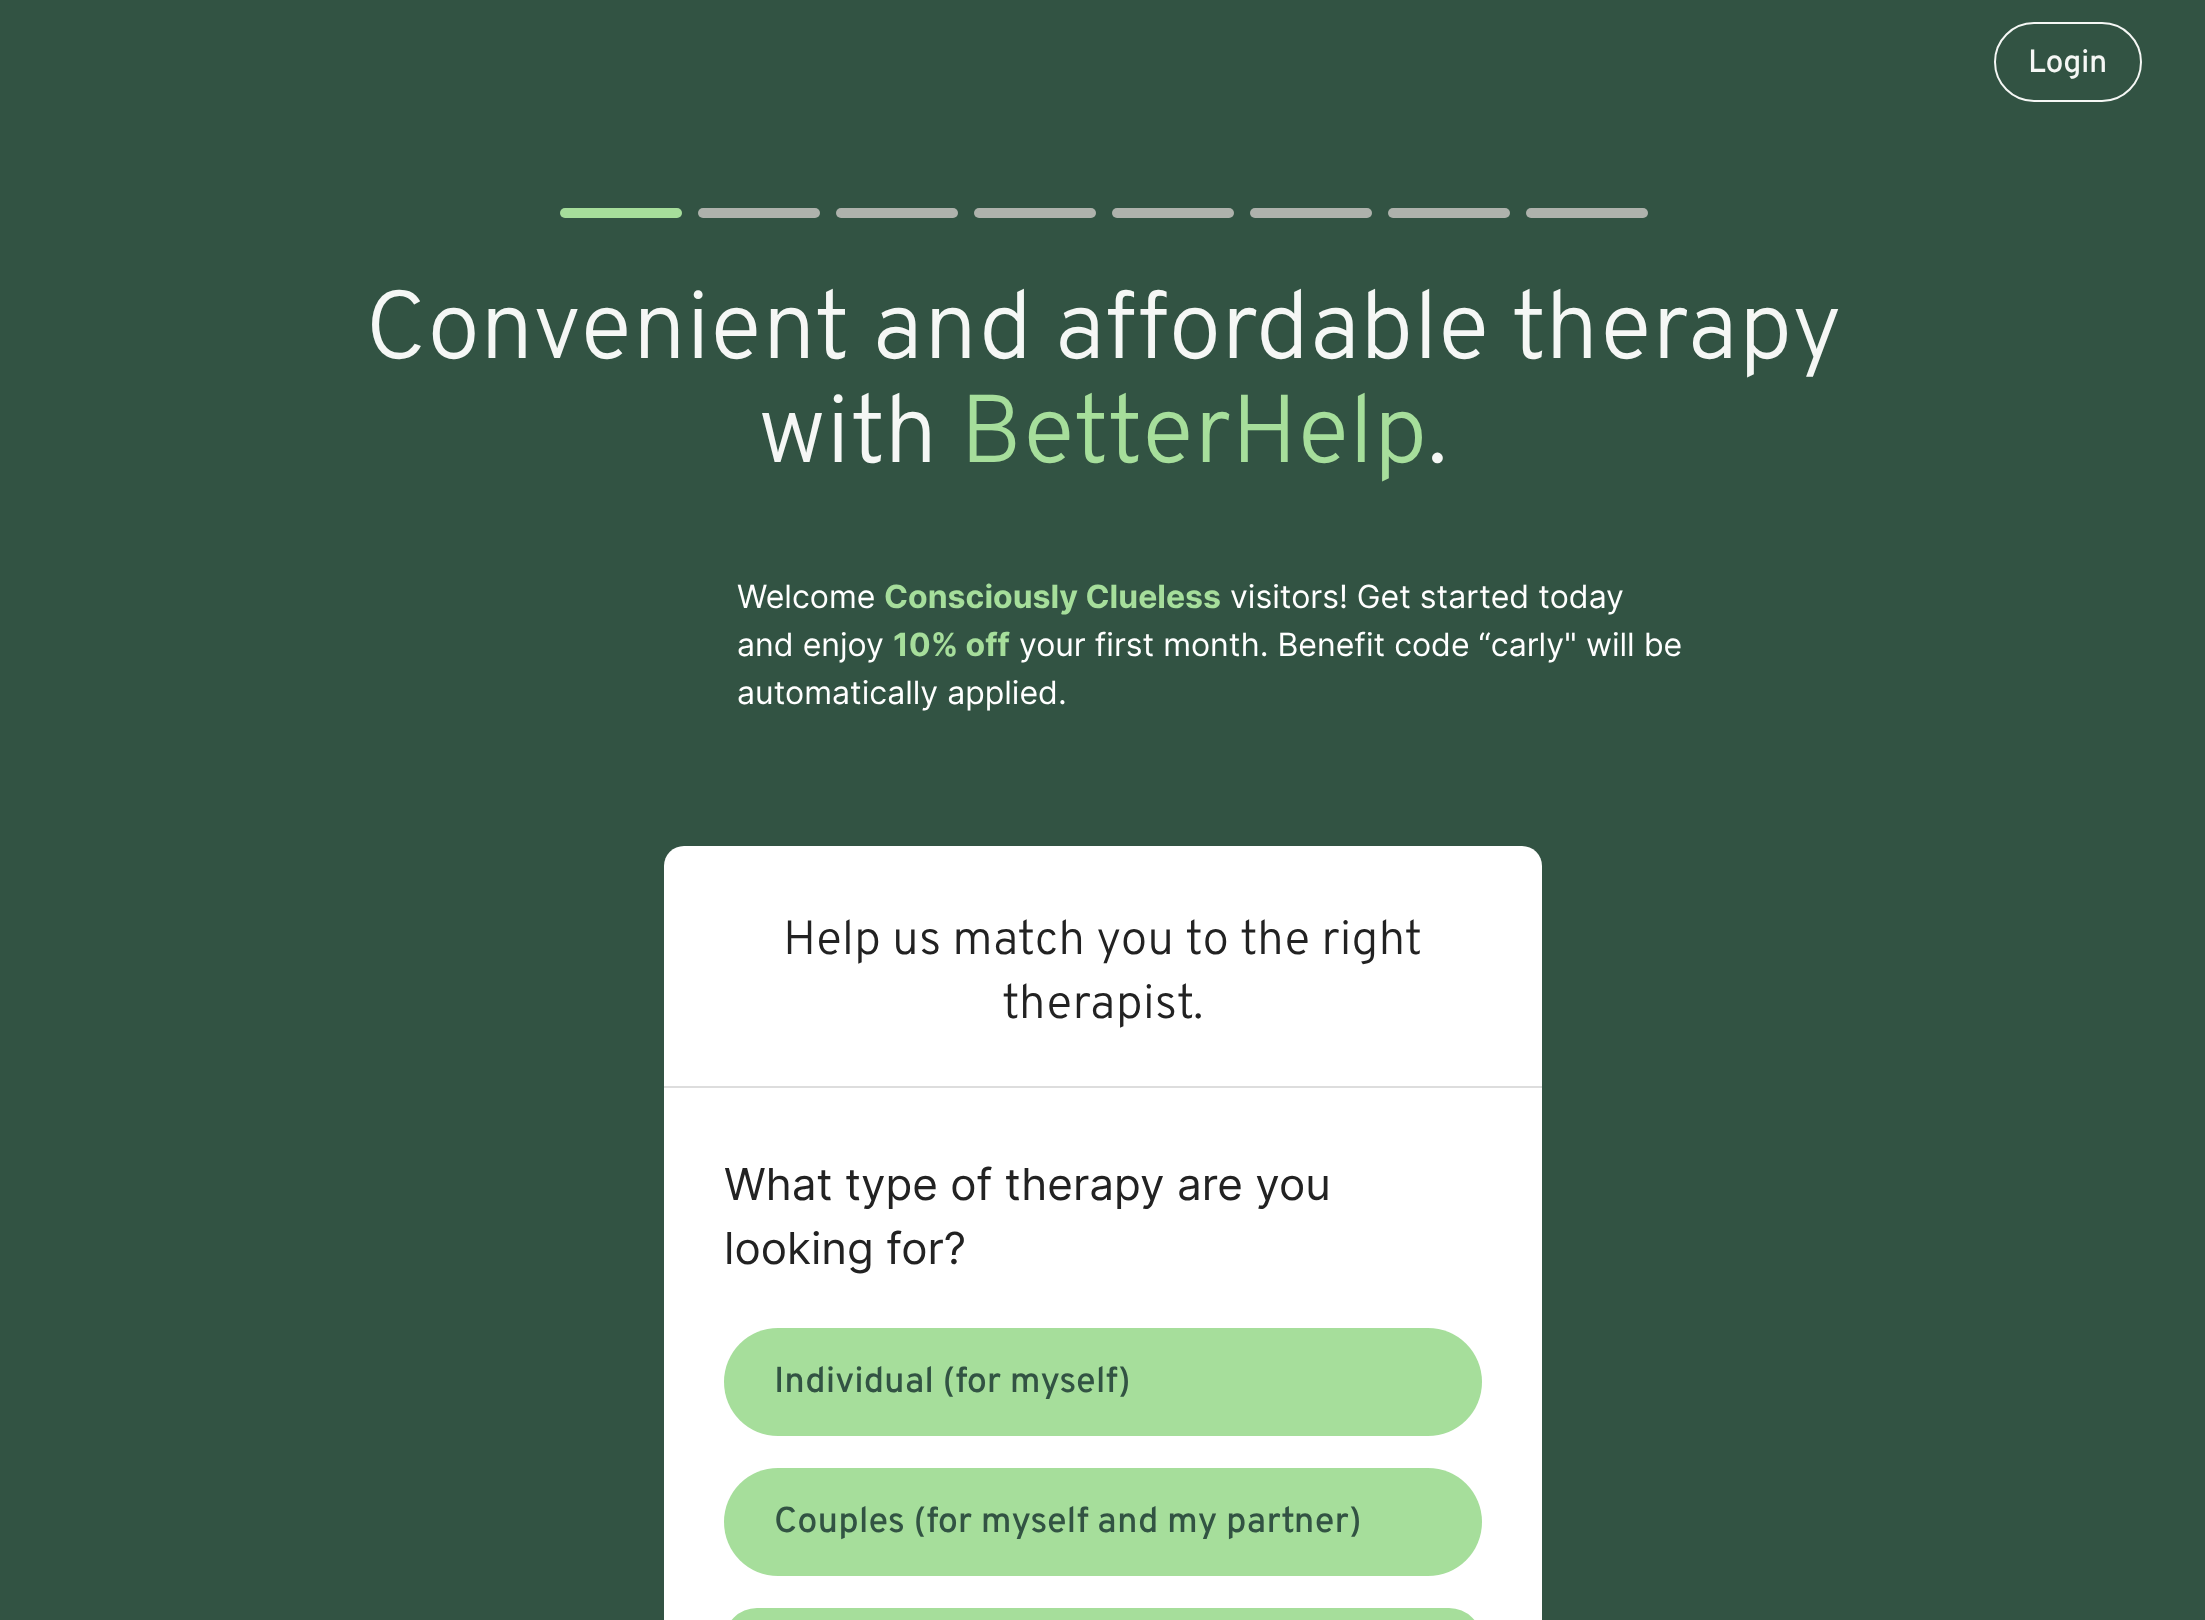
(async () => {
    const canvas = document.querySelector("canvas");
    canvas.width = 2205;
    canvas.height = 1620;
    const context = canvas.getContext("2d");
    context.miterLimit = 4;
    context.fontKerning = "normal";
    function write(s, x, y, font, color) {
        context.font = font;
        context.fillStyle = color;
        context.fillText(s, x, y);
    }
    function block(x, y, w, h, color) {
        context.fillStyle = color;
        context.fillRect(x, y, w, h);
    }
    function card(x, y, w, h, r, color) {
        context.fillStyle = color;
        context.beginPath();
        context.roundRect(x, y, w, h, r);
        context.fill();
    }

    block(0, 0, 2205, 1620, "rgb(50, 83, 67)");
    context.beginPath();
    context.roundRect(1995, 23, 146, 78, 39);
    context.strokeStyle = "rgb(245, 247, 245)";
    context.lineWidth = 2;
    context.stroke();
    context.letterSpacing = "-0.5px";
    write("Login", 2028, 72, "500 32px Overpass", "rgb(245, 247, 245)");
    card(560, 208, 122, 10, 5, "rgb(166, 222, 155)");
    card(698, 208, 122, 10, 5, "rgb(174, 178, 172)");
    card(836, 208, 122, 10, 5, "rgb(174, 178, 172)");
    card(974, 208, 122, 10, 5, "rgb(174, 178, 172)");
    card(1112, 208, 122, 10, 5, "rgb(174, 178, 172)");
    card(1250, 208, 122, 10, 5, "rgb(174, 178, 172)");
    card(1388, 208, 122, 10, 5, "rgb(174, 178, 172)");
    card(1526, 208, 122, 10, 5, "rgb(174, 178, 172)");
    context.letterSpacing = "0px";
    write("Convenient and affordable therapy", 365, 358, "300 96px Overpass", "rgb(245, 247, 245)");
    write("with", 758, 462, "300 96px Overpass", "rgb(245, 247, 245)");
    write("BetterHelp", 960, 462, "300 96px Overpass", "rgb(166, 222, 155)");
    write(".", 1427, 462, "300 96px Overpass", "rgb(245, 247, 245)");
    write("Welcome", 737, 608, "32px Inter", "rgb(255, 255, 255)");
    write("Consciously Clueless", 884, 608, "bold 32px Inter", "rgb(166, 222, 155)");
    write("visitors! Get started today", 1230, 608, "32px Inter", "rgb(255, 255, 255)");
    write("and enjoy", 737, 656, "32px Inter", "rgb(255, 255, 255)");
    write("10% off", 893, 656, "bold 32px Inter", "rgb(166, 222, 155)");
    write("your first month. Benefit code “carly\" will be", 1019, 656, "32px Inter", "rgb(255, 255, 255)");
    write("automatically applied.", 737, 704, "32px Inter", "rgb(255, 255, 255)");
    card(664, 846, 878, 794, 20, "rgb(255, 255, 255)");
    block(664, 1086, 878, 2, "rgb(221, 221, 221)");
    write("Help us match you to the right", 783, 954, "300 48px Overpass", "rgb(34, 34, 34)");
    write("therapist", 1002, 1018, "300 48px Overpass", "rgb(34, 34, 34)");
    write(".", 1193, 1018, "300 48px Overpass", "rgb(34, 34, 34)");
    write("What type of therapy are you", 724, 1200, "44px Inter", "rgb(34, 34, 34)");
    write("looking for?", 724, 1264, "44px Inter", "rgb(34, 34, 34)");
    card(724, 1328, 758, 108, 54, "rgb(166, 222, 155)");
    write("Individual (for myself)", 774, 1392, "500 36px Overpass", "rgb(50, 83, 67)");
    card(724, 1468, 758, 108, 54, "rgb(166, 222, 155)");
    write("Couples (for myself and my partner)", 774, 1532, "500 36px Overpass", "rgb(50, 83, 67)");
    card(724, 1608, 758, 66, 54, "rgb(166, 222, 155)");
})();
